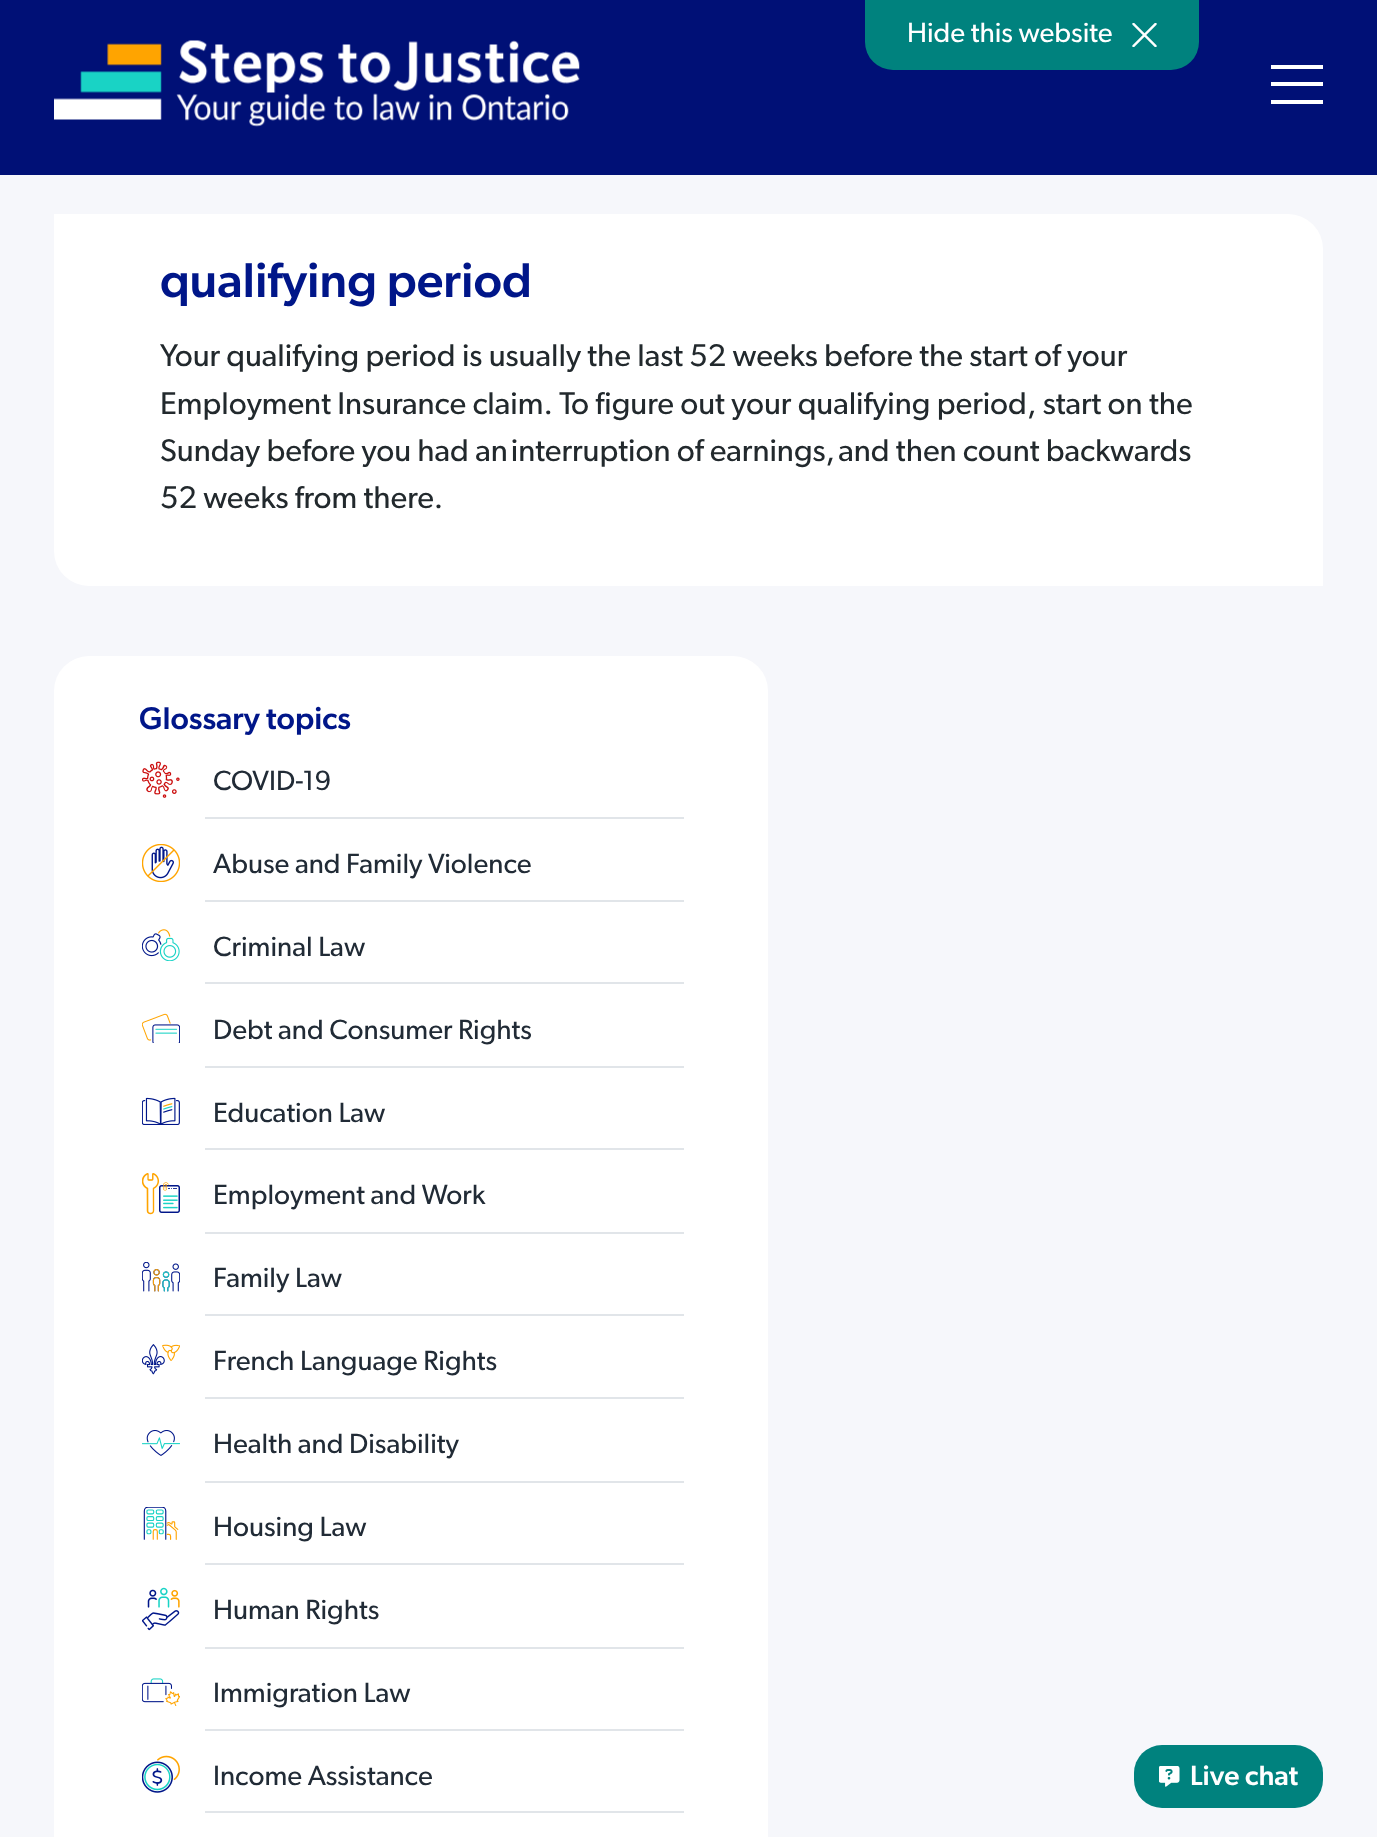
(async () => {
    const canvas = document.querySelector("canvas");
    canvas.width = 1377;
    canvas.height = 1837;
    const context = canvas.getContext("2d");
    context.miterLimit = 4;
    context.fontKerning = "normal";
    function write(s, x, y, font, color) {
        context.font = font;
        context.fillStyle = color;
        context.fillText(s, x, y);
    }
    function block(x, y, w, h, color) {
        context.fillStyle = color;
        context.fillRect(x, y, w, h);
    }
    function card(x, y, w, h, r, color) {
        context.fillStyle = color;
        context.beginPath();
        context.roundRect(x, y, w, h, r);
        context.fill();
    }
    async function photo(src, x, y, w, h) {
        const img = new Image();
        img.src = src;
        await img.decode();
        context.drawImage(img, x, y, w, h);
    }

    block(0, 0, 1377, 1837, "rgb(246, 247, 251)");
    block(0, 0, 1377, 175, "rgb(0, 16, 118)");
    context.fillStyle = "rgb(0, 130, 126)";
    context.beginPath();
    context.roundRect(865, 0, 334, 70, [0, 0, 28, 28]);
    context.fill();
    write("Hide this website", 907, 42, "28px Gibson", "rgb(255, 255, 255)");
    await photo("media/1.png", 1132, 23, 25, 24);
    await photo("media/2.png", 54, 40, 526, 87);
    block(1271, 65, 52, 4, "rgb(255, 255, 255)");
    block(1271, 82, 52, 4, "rgb(255, 255, 255)");
    block(1271, 100, 52, 4, "rgb(255, 255, 255)");
    context.beginPath();
    context.roundRect(54, 214, 1269, 372, [0, 35, 0, 35]);
    context.fill();
    write("qualifying period", 160, 297, "500 49px Gibson", "rgb(0, 22, 137)");
    write("Your qualifying period is usually the last 52 weeks before the start of your", 160, 366, "31.5px Gibson", "rgb(34, 41, 45)");
    write("Employment Insurance claim. To figure out your qualifying period, start on the", 160, 414, "31.5px Gibson", "rgb(34, 41, 45)");
    write("Sunday before you had an interruption of earnings, and then count backwards", 160, 461, "31.5px Gibson", "rgb(34, 41, 45)");
    write("52 weeks from there.", 160, 508, "31.5px Gibson", "rgb(34, 41, 45)");
    card(54, 656, 714, 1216, 35, "rgb(255, 255, 255)");
    write("Glossary topics", 139, 729, "500 31.5px Gibson", "rgb(0, 22, 137)");
    await photo("media/3.png", 142, 761, 38, 37);
    write("COVID-19", 213, 790, "28px Gibson", "rgb(33, 43, 54)");
    block(205, 817, 479, 2, "rgb(225, 229, 233)");
    await photo("media/4.png", 142, 844, 38, 38);
    write("Abuse and Family Violence", 213, 873, "28px Gibson", "rgb(33, 43, 54)");
    block(205, 900, 479, 2, "rgb(225, 229, 233)");
    await photo("media/5.png", 142, 929, 38, 32);
    write("Criminal Law", 213, 956, "28px Gibson", "rgb(33, 43, 54)");
    block(205, 982, 479, 2, "rgb(225, 229, 233)");
    await photo("media/6.png", 142, 1013, 38, 30);
    write("Debt and Consumer Rights", 213, 1039, "28px Gibson", "rgb(33, 43, 54)");
    block(205, 1066, 479, 2, "rgb(225, 229, 233)");
    await photo("media/7.png", 142, 1097, 38, 28);
    write("Education Law", 213, 1122, "28px Gibson", "rgb(33, 43, 54)");
    block(205, 1148, 479, 2, "rgb(225, 229, 233)");
    await photo("media/8.png", 142, 1173, 38, 42);
    write("Employment and Work", 213, 1204, "28px Gibson", "rgb(33, 43, 54)");
    block(205, 1232, 479, 2, "rgb(225, 229, 233)");
    await photo("media/9.png", 142, 1262, 38, 30);
    write("Family Law", 213, 1287, "28px Gibson", "rgb(33, 43, 54)");
    block(205, 1314, 479, 2, "rgb(225, 229, 233)");
    await photo("media/10.png", 142, 1344, 38, 31);
    write("French Language Rights", 213, 1370, "28px Gibson", "rgb(33, 43, 54)");
    block(205, 1397, 479, 2, "rgb(225, 229, 233)");
    await photo("media/11.png", 142, 1430, 38, 26);
    write("Health and Disability", 213, 1453, "28px Gibson", "rgb(33, 43, 54)");
    block(205, 1481, 479, 2, "rgb(225, 229, 233)");
    await photo("media/12.png", 143, 1507, 36, 33);
    write("Housing Law", 213, 1536, "28px Gibson", "rgb(33, 43, 54)");
    block(205, 1563, 479, 2, "rgb(225, 229, 233)");
    await photo("media/13.png", 142, 1587, 38, 44);
    write("Human Rights", 213, 1619, "28px Gibson", "rgb(33, 43, 54)");
    block(205, 1647, 479, 2, "rgb(225, 229, 233)");
    await photo("media/14.png", 142, 1678, 38, 28);
    write("Immigration Law", 213, 1702, "28px Gibson", "rgb(33, 43, 54)");
    block(205, 1729, 479, 2, "rgb(225, 229, 233)");
    await photo("media/15.png", 142, 1755, 38, 38);
    write("Income Assistance", 213, 1785, "28px Gibson", "rgb(33, 43, 54)");
    block(205, 1811, 479, 2, "rgb(225, 229, 233)");
    card(1134, 1745, 189, 63, 28, "rgb(0, 130, 126)");
    await photo("media/16.png", 1159, 1766, 21, 21);
    write("Live chat", 1190, 1785, "500 28px Gibson", "rgb(255, 255, 255)");
})();
